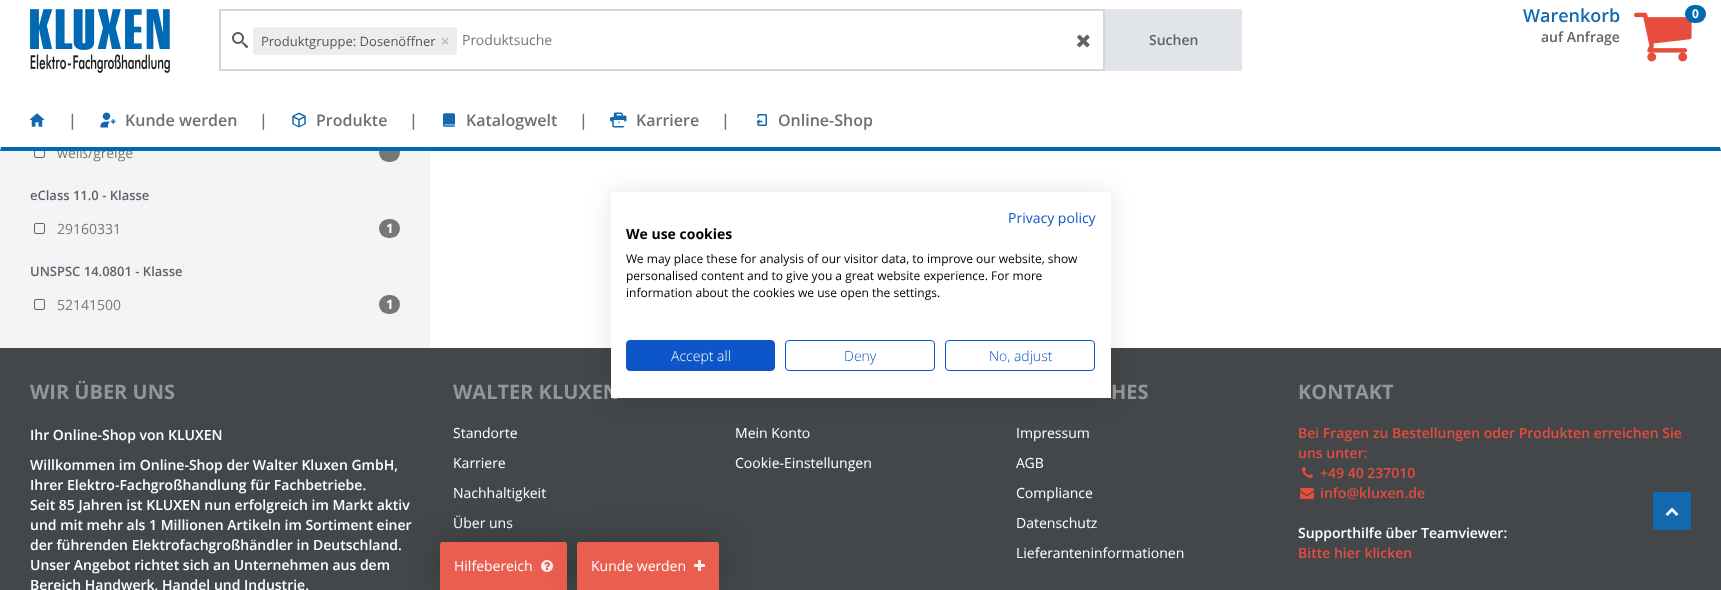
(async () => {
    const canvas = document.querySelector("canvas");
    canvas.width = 1721;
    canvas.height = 590;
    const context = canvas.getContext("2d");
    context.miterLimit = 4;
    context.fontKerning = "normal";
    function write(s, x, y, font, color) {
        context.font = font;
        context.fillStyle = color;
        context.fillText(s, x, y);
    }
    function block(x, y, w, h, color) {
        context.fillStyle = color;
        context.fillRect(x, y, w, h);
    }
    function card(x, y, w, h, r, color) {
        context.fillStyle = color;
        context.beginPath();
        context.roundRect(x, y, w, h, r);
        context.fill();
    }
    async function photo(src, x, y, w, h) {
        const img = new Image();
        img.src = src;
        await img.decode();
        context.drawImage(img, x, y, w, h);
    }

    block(0, 0, 1721, 590, "rgb(255, 255, 255)");
    block(0, 151, 430, 197, "rgb(244, 244, 246)");
    write("weiß/greige", 57, 158, "14px Open Sans", "rgb(119, 119, 119)");
    card(379, 143, 21, 19, 9.5, "rgb(119, 119, 119)");
    block(56, 143, 344, 8, "rgb(255, 255, 255)");
    await photo("media/1.png", 30, 9, 140, 64);
    await photo("media/2.png", 232, 32, 16, 16);
    context.strokeStyle = "rgb(211, 214, 218)";
    context.lineWidth = 2;
    context.strokeRect(220, 10, 884, 60);
    card(253, 27, 204, 28, 3, "rgb(237, 237, 237)");
    write("Produktgruppe: Dosenöffner", 261, 46, "13px Open Sans", "rgb(85, 85, 85)");
    write("×", 441, 46, "bold 14px Liberation Sans", "rgb(190, 190, 190)");
    write("Produktsuche", 462, 45, "14px Open Sans", "rgb(119, 119, 119)");
    await photo("media/3.png", 1077, 34, 13, 14);
    block(1105, 9, 137, 62, "rgb(225, 228, 232)");
    write("Suchen", 1149, 45, "600 14px Open Sans", "rgb(94, 100, 104)");
    write("Warenkorb", 1523, 22, "600 18px Open Sans", "rgb(18, 105, 176)");
    write("auf Anfrage", 1541, 42, "600 14px Open Sans", "rgb(94, 100, 104)");
    await photo("media/4.png", 1634, 12, 58, 50);
    card(1685, 5, 21, 18, 9, "rgb(0, 105, 180)");
    write("0", 1692, 18, "bold 12px Open Sans", "rgb(255, 255, 255)");
    context.fillStyle = "rgb(0, 105, 180)";
    context.beginPath();
    context.moveTo(1721, 151);
    context.lineTo(0, 151);
    context.lineTo(1, 147);
    context.lineTo(1720, 147);
    context.closePath();
    context.fill();
    await photo("media/5.png", 29, 113, 16, 14);
    write("|", 68, 126, "600 16px Open Sans", "rgb(111, 111, 111)");
    await photo("media/6.png", 100, 112, 16, 16);
    write("Kunde werden", 125, 126, "600 16px Open Sans", "rgb(111, 111, 111)");
    write("|", 259, 126, "600 16px Open Sans", "rgb(111, 111, 111)");
    await photo("media/7.png", 292, 112, 14, 16);
    write("Produkte", 316, 126, "600 16px Open Sans", "rgb(111, 111, 111)");
    write("|", 409, 126, "600 16px Open Sans", "rgb(111, 111, 111)");
    await photo("media/8.png", 443, 113, 12, 14);
    write("Katalogwelt", 466, 126, "600 16px Open Sans", "rgb(111, 111, 111)");
    write("|", 579, 126, "600 16px Open Sans", "rgb(111, 111, 111)");
    await photo("media/9.png", 610, 112, 17, 16);
    write("Karriere", 636, 126, "600 16px Open Sans", "rgb(111, 111, 111)");
    write("|", 721, 126, "600 16px Open Sans", "rgb(111, 111, 111)");
    await photo("media/10.png", 756, 114, 11, 12);
    write("Online-Shop", 778, 126, "600 16px Open Sans", "rgb(111, 111, 111)");
    await photo("media/11.png", 34, 151, 11, 7);
    write("eClass 11.0 - Klasse", 30, 200, "600 13px Open Sans", "rgb(94, 100, 104)");
    await photo("media/12.png", 34, 223, 11, 11);
    write("29160331", 57, 234, "14px Open Sans", "rgb(119, 119, 119)");
    card(379, 219, 21, 19, 9.5, "rgb(119, 119, 119)");
    write("1", 386, 233, "bold 13px Open Sans", "rgb(255, 255, 255)");
    write("UNSPSC 14.0801 - Klasse", 30, 276, "600 13px Open Sans", "rgb(94, 100, 104)");
    await photo("media/12.png", 34, 299, 11, 11);
    write("52141500", 57, 310, "14px Open Sans", "rgb(119, 119, 119)");
    card(379, 295, 21, 19, 9.5, "rgb(119, 119, 119)");
    write("1", 386, 309, "bold 13px Open Sans", "rgb(255, 255, 255)");
    block(0, 348, 1721, 242, "rgb(67, 71, 74)");
    context.fillStyle = "rgba(0, 0, 0, 0.1)";
    context.filter = "blur(12px)";
    context.beginPath();
    context.rect(611, 192, 500, 206);
    context.fill();
    context.filter = "none";
    write("WALTER KLUXEN", 453, 399, "bold 20px Open Sans", "rgb(148, 149, 152)");
    block(611, 192, 500, 206, "rgb(255, 255, 255)");
    write("Privacy policy", 1008, 223, "14px Open Sans", "rgb(13, 86, 201)");
    write("We use cookies", 626, 239, "bold 14px Open Sans", "rgb(0, 0, 0)");
    write("We may place these for analysis of our visitor data, to improve our website, show", 626, 263, "12px Open Sans", "rgb(0, 0, 0)");
    write("personalised content and to give you a great website experience. For more", 626, 280, "12px Open Sans", "rgb(0, 0, 0)");
    write("information about the cookies we use open the settings.", 626, 297, "12px Open Sans", "rgb(0, 0, 0)");
    context.fillStyle = "rgb(13, 86, 201)";
    context.beginPath();
    context.roundRect(626.5, 340.5, 148, 30, 3.5);
    context.fill();
    context.strokeStyle = "rgb(13, 86, 201)";
    context.lineWidth = 1;
    context.stroke();
    write("Accept all", 671, 361, "300 14px Open Sans", "rgb(255, 255, 255)");
    context.beginPath();
    context.roundRect(785.5, 340.5, 149, 30, 3.5);
    context.stroke();
    write("Deny", 844, 361, "300 14px Open Sans", "rgb(13, 86, 201)");
    context.beginPath();
    context.roundRect(945.5, 340.5, 149, 30, 3.5);
    context.stroke();
    write("No, adjust", 989, 361, "300 14px Open Sans", "rgb(13, 86, 201)");
    write("WIR ÜBER UNS", 30, 399, "bold 20px Open Sans", "rgb(148, 149, 152)");
    write("Ihr Online-Shop von KLUXEN", 30, 440, "600 14px Open Sans", "rgb(255, 255, 255)");
    write("Willkommen im Online-Shop der Walter Kluxen GmbH,", 30, 470, "600 14px Open Sans", "rgb(255, 255, 255)");
    write("Ihrer Elektro-Fachgroßhandlung für Fachbetriebe.", 30, 490, "600 14px Open Sans", "rgb(255, 255, 255)");
    write("Seit 85 Jahren ist KLUXEN nun erfolgreich im Markt aktiv", 30, 510, "600 14px Open Sans", "rgb(255, 255, 255)");
    write("und mit mehr als 1 Millionen Artikeln im Sortiment einer", 30, 530, "600 14px Open Sans", "rgb(255, 255, 255)");
    write("der führenden Elektrofachgroßhändler in Deutschland.", 30, 550, "600 14px Open Sans", "rgb(255, 255, 255)");
    write("Unser Angebot richtet sich an Unternehmen aus dem", 30, 570, "600 14px Open Sans", "rgb(255, 255, 255)");
    write("Bereich Handwerk, Handel und Industrie.", 30, 590, "600 14px Open Sans", "rgb(255, 255, 255)");
    write("Standorte", 453, 438, "14px Open Sans", "rgb(255, 255, 255)");
    write("Karriere", 453, 468, "14px Open Sans", "rgb(255, 255, 255)");
    write("Nachhaltigkeit", 453, 498, "14px Open Sans", "rgb(255, 255, 255)");
    write("Über uns", 453, 528, "14px Open Sans", "rgb(255, 255, 255)");
    write("Mein Konto", 735, 438, "14px Open Sans", "rgb(255, 255, 255)");
    write("Cookie-Einstellungen", 735, 468, "14px Open Sans", "rgb(255, 255, 255)");
    write("HES", 1111, 399, "bold 20px Open Sans", "rgb(148, 149, 152)");
    write("Impressum", 1016, 438, "14px Open Sans", "rgb(255, 255, 255)");
    write("AGB", 1016, 468, "14px Open Sans", "rgb(255, 255, 255)");
    write("Compliance", 1016, 498, "14px Open Sans", "rgb(255, 255, 255)");
    write("Datenschutz", 1016, 528, "14px Open Sans", "rgb(255, 255, 255)");
    write("Lieferanteninformationen", 1016, 558, "14px Open Sans", "rgb(255, 255, 255)");
    write("KONTAKT", 1298, 399, "bold 20px Open Sans", "rgb(148, 149, 152)");
    write("Bei Fragen zu Bestellungen oder Produkten erreichen Sie", 1298, 438, "600 14px Open Sans", "rgb(231, 76, 60)");
    write("uns unter:", 1298, 458, "600 14px Open Sans", "rgb(231, 76, 60)");
    await photo("media/13.png", 1302, 467, 11, 11);
    write("+49 40 237010", 1320, 478, "600 14px Open Sans", "rgb(231, 76, 60)");
    await photo("media/14.png", 1300, 488, 14, 11);
    write("info@kluxen.de", 1320, 498, "600 14px Open Sans", "rgb(231, 76, 60)");
    write("Supporthilfe über Teamviewer:", 1298, 538, "600 14px Open Sans", "rgb(255, 255, 255)");
    write("Bitte hier klicken", 1298, 558, "600 14px Open Sans", "rgb(231, 76, 60)");
    block(1653, 492, 38, 38, "rgb(18, 105, 176)");
    await photo("media/15.png", 1665, 507, 14, 9);
    context.fillStyle = "rgba(0, 0, 0, 0.2)";
    context.filter = "blur(15px)";
    context.beginPath();
    context.roundRect(440, 542, 127, 48, 4);
    context.fill();
    context.filter = "none";
    context.fillStyle = "rgb(248, 248, 248)";
    context.beginPath();
    context.roundRect(440, 542, 127, 48, [4, 4, 0, 0]);
    context.fill();
    context.fillStyle = "rgba(0, 0, 0, 0.2)";
    context.filter = "blur(15px)";
    context.beginPath();
    context.roundRect(577, 542, 142, 48, 4);
    context.fill();
    context.filter = "none";
    context.fillStyle = "rgba(231, 76, 60, 0.9)";
    context.beginPath();
    context.roundRect(440, 542, 127, 48, [4, 4, 0, 0]);
    context.fill();
    write("Hilfebereich", 454, 571, "14px Open Sans", "rgb(255, 255, 255)");
    await photo("media/16.png", 541, 560, 12, 12);
    context.fillStyle = "rgb(248, 248, 248)";
    context.beginPath();
    context.roundRect(577, 542, 142, 48, [4, 4, 0, 0]);
    context.fill();
    context.fillStyle = "rgba(231, 76, 60, 0.9)";
    context.beginPath();
    context.roundRect(577, 542, 142, 48, [4, 4, 0, 0]);
    context.fill();
    write("Kunde werden", 591, 571, "14px Open Sans", "rgb(255, 255, 255)");
    await photo("media/17.png", 694, 560, 11, 11);
})();
